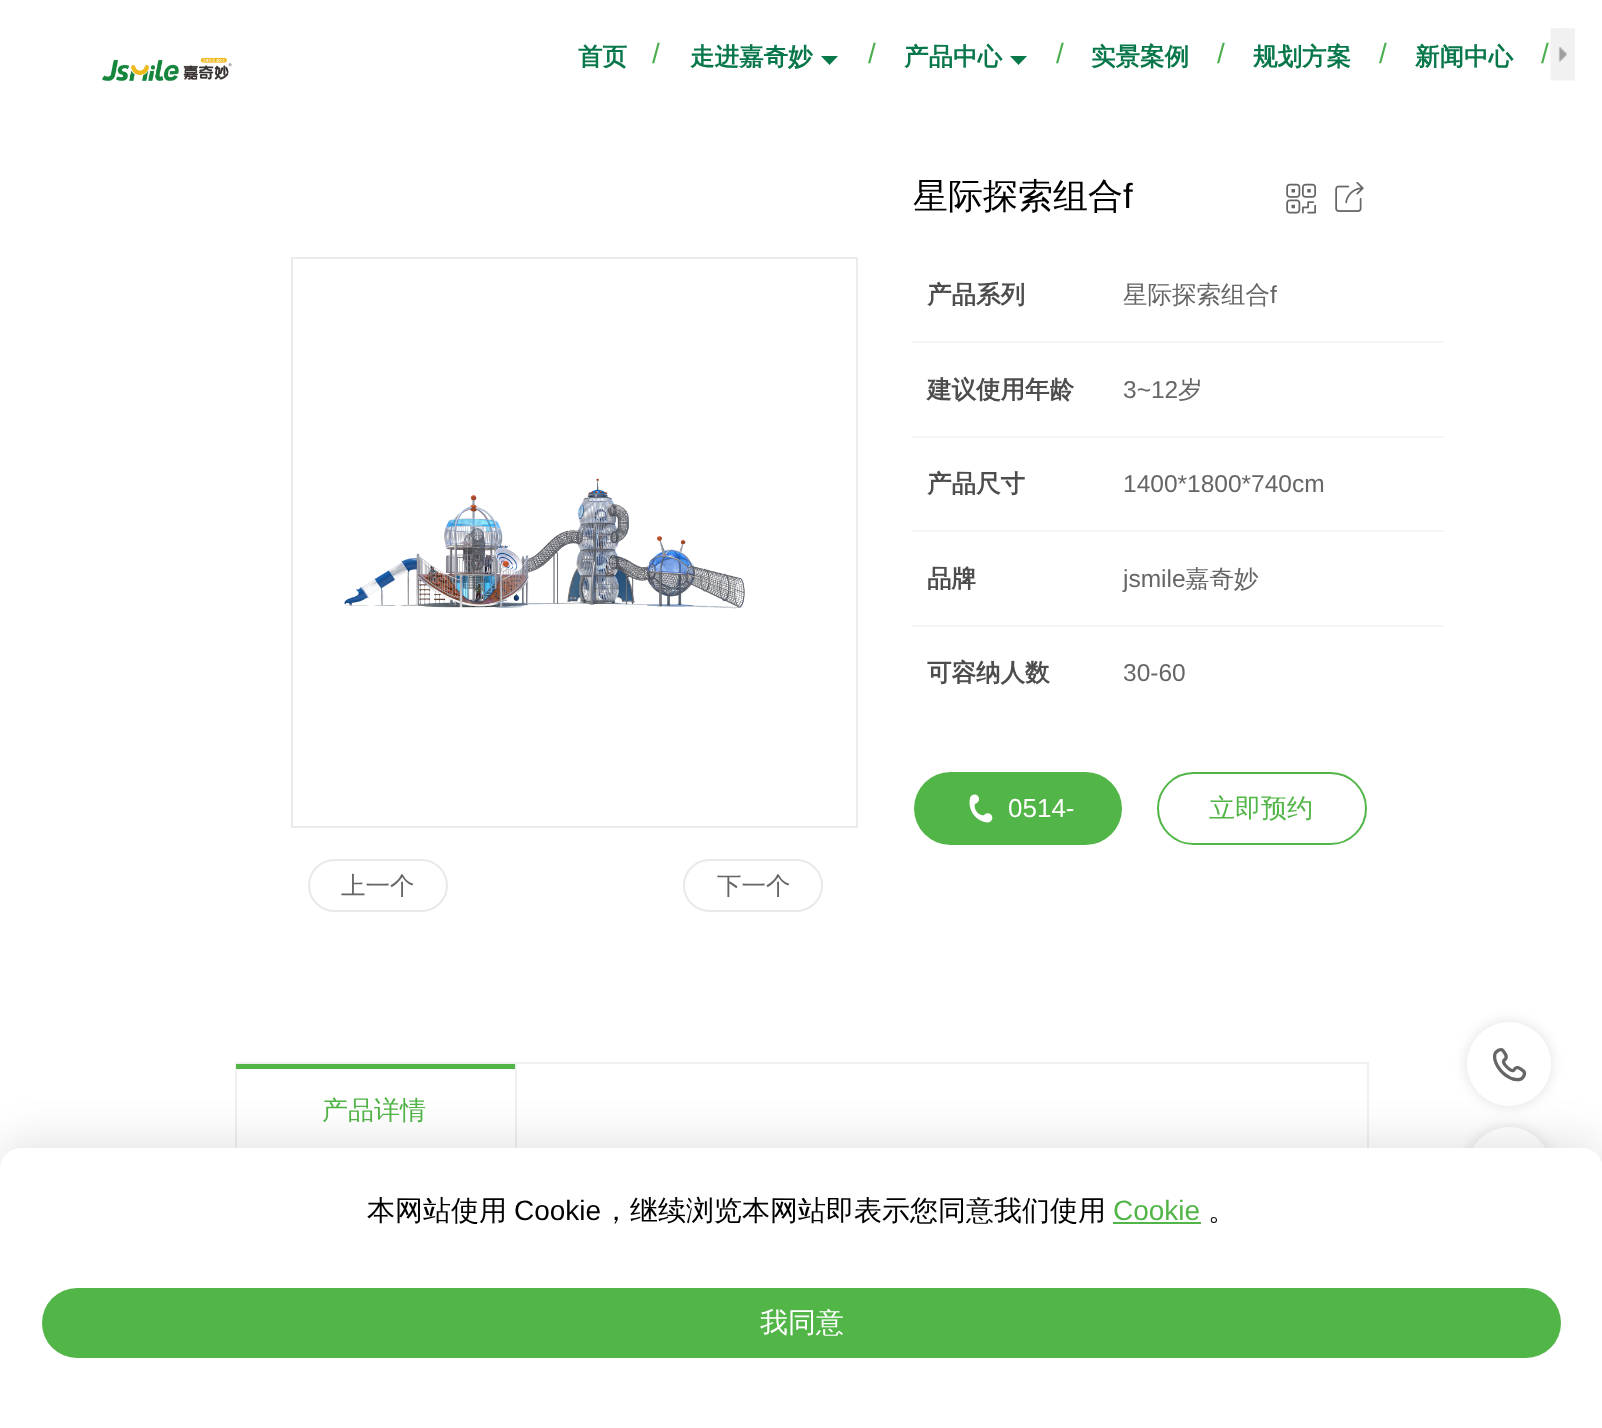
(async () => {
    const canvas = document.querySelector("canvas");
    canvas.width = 1602;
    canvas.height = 1428;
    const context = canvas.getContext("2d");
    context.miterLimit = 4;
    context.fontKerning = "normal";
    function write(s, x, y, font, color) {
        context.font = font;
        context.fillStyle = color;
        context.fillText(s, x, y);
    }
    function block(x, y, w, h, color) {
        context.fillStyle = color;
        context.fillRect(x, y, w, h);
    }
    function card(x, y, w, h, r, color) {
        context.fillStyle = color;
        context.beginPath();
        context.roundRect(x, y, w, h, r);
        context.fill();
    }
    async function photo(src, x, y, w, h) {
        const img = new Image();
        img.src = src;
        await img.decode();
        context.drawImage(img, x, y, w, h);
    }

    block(0, 0, 1602, 1428, "rgb(255, 255, 255)");
    await photo("media/1.png", 102, 57, 130, 24);
    write("首页", 578, 65, "bold 24.5px WenQuanYi Zen Hei", "rgb(8, 119, 74)");
    write("/", 652, 63, "28px Liberation Sans", "rgb(76, 176, 80)");
    write("走进嘉奇妙", 690, 65, "bold 24.5px WenQuanYi Zen Hei", "rgb(8, 119, 74)");
    context.beginPath();
    context.moveTo(821, 56);
    context.lineTo(838, 56);
    context.lineTo(829.5, 65);
    context.closePath();
    context.fill();
    write("/", 868, 63, "28px Liberation Sans", "rgb(76, 176, 80)");
    write("产品中心", 904, 65, "bold 24.5px WenQuanYi Zen Hei", "rgb(8, 119, 74)");
    context.beginPath();
    context.moveTo(1010, 56);
    context.lineTo(1027, 56);
    context.lineTo(1018.5, 65);
    context.closePath();
    context.fill();
    write("/", 1056, 63, "28px Liberation Sans", "rgb(76, 176, 80)");
    write("实景案例", 1091, 65, "bold 24.5px WenQuanYi Zen Hei", "rgb(8, 119, 74)");
    write("/", 1217, 63, "28px Liberation Sans", "rgb(76, 176, 80)");
    write("规划方案", 1253, 65, "bold 24.5px WenQuanYi Zen Hei", "rgb(8, 119, 74)");
    write("/", 1379, 63, "28px Liberation Sans", "rgb(76, 176, 80)");
    write("新闻中心", 1415, 65, "bold 24.5px WenQuanYi Zen Hei", "rgb(8, 119, 74)");
    write("/", 1541, 63, "28px Liberation Sans", "rgb(76, 176, 80)");
    await photo("media/2.png", 1550, 28, 25, 53);
    write("星际探索组合", 913, 208, "500 35px WenQuanYi Zen Hei", "rgb(0, 0, 0)");
    write("f", 1123, 208, "35px Liberation Sans", "rgb(0, 0, 0)");
    await photo("media/3.png", 1286, 183, 30, 31);
    await photo("media/4.png", 1335, 181, 29, 31);
    block(912, 341, 532, 2, "rgb(245, 245, 245)");
    write("产品系列", 927, 303, "bold 24.5px WenQuanYi Zen Hei", "rgb(77, 77, 77)");
    write("星际探索组合", 1123, 303, "500 24.5px WenQuanYi Zen Hei", "rgb(102, 102, 102)");
    write("f", 1270, 303, "24.5px Liberation Sans", "rgb(102, 102, 102)");
    block(912, 436, 532, 2, "rgb(245, 245, 245)");
    write("建议使用年龄", 927, 398, "bold 24.5px WenQuanYi Zen Hei", "rgb(77, 77, 77)");
    write("3~12", 1123, 398, "24.5px Liberation Sans", "rgb(102, 102, 102)");
    write("岁", 1178, 398, "500 24.5px WenQuanYi Zen Hei", "rgb(102, 102, 102)");
    block(912, 530, 532, 2, "rgb(245, 245, 245)");
    write("产品尺寸", 927, 492, "bold 24.5px WenQuanYi Zen Hei", "rgb(77, 77, 77)");
    write("1400*1800*740cm", 1123, 492, "24.5px Liberation Sans", "rgb(102, 102, 102)");
    block(912, 625, 532, 2, "rgb(245, 245, 245)");
    write("品牌", 927, 587, "bold 24.5px WenQuanYi Zen Hei", "rgb(77, 77, 77)");
    write("jsmile", 1123, 587, "24.5px Liberation Sans", "rgb(102, 102, 102)");
    write("嘉奇妙", 1185, 587, "500 24.5px WenQuanYi Zen Hei", "rgb(102, 102, 102)");
    write("可容纳人数", 927, 681, "bold 24.5px WenQuanYi Zen Hei", "rgb(77, 77, 77)");
    write("30-60", 1123, 681, "24.5px Liberation Sans", "rgb(102, 102, 102)");
    card(914, 772, 208, 73, 36.5, "rgb(82, 181, 72)");
    await photo("media/5.png", 969, 794, 24, 29);
    write("0514-", 1008, 817, "26px Liberation Sans", "rgb(255, 255, 255)");
    context.beginPath();
    context.roundRect(1158, 773, 208, 71, 35.5);
    context.strokeStyle = "rgb(82, 181, 72)";
    context.lineWidth = 2;
    context.stroke();
    write("立即预约", 1209, 817, "500 26px WenQuanYi Zen Hei", "rgb(82, 181, 72)");
    context.strokeStyle = "rgb(235, 235, 235)";
    context.strokeRect(292, 258, 565, 569);
    await photo("media/6.png", 344, 478, 401, 131);
    context.beginPath();
    context.roundRect(309, 860, 138, 51, 25.5);
    context.strokeStyle = "rgb(233, 233, 233)";
    context.stroke();
    write("上一个", 341, 894, "500 24.5px WenQuanYi Zen Hei", "rgb(102, 102, 102)");
    context.beginPath();
    context.roundRect(684, 860, 138, 51, 25.5);
    context.stroke();
    write("下一个", 717, 894, "500 24.5px WenQuanYi Zen Hei", "rgb(102, 102, 102)");
    context.strokeStyle = "rgb(240, 240, 240)";
    context.strokeRect(236, 1063, 1132, 96);
    block(515, 1064, 2, 84, "rgb(240, 240, 240)");
    block(236, 1064, 279, 5, "rgb(82, 181, 72)");
    write("产品详情", 322, 1119, "500 26px WenQuanYi Zen Hei", "rgb(82, 181, 72)");
    context.fillStyle = "rgba(0, 0, 0, 0.12)";
    context.filter = "blur(7px)";
    context.beginPath();
    context.roundRect(1467, 1022, 84, 84, 42);
    context.fill();
    context.filter = "none";
    context.fillStyle = "rgb(255, 255, 255)";
    context.beginPath();
    context.arc(1509, 1064, 42, 0, Math.PI * 2);
    context.fill();
    write("򡂔", 1491, 1080, "35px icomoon", "rgb(102, 102, 102)");
    context.fillStyle = "rgba(0, 0, 0, 0.12)";
    context.filter = "blur(7px)";
    context.beginPath();
    context.roundRect(1467, 1127, 84, 84, 42);
    context.fill();
    context.filter = "none";
    context.fillStyle = "rgb(255, 255, 255)";
    context.beginPath();
    context.arc(1509, 1169, 42, 0, Math.PI * 2);
    context.fill();
    context.fillStyle = "rgba(0, 0, 0, 0.1)";
    context.filter = "blur(21px)";
    context.beginPath();
    context.roundRect(0, 1139, 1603, 280, 21);
    context.fill();
    context.filter = "none";
    context.fillStyle = "rgb(255, 255, 255)";
    context.beginPath();
    context.moveTo(21, 1148);
    context.lineTo(1582, 1148);
    context.bezierCurveTo(1593.5, 1148, 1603, 1157.5, 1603, 1169);
    context.lineTo(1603, 1428);
    context.lineTo(0, 1428);
    context.lineTo(0, 1169);
    context.bezierCurveTo(0, 1157.5, 9.5, 1148, 21, 1148);
    context.closePath();
    context.fill();
    write("本网站使用", 367, 1220, "500 28px WenQuanYi Zen Hei", "rgb(0, 0, 0)");
    write("Cookie", 514, 1220, "28px Liberation Sans", "rgb(0, 0, 0)");
    write("，继续浏览本网站即表示您同意我们使用", 602, 1220, "500 28px WenQuanYi Zen Hei", "rgb(0, 0, 0)");
    write("Cookie", 1113, 1220, "28px Liberation Sans", "rgb(82, 181, 72)");
    block(1113, 1222, 88, 2, "rgb(82, 181, 72)");
    write("。", 1208, 1220, "500 28px WenQuanYi Zen Hei", "rgb(0, 0, 0)");
    card(42, 1288, 1519, 70, 35, "rgb(82, 181, 72)");
    write("我同意", 760, 1332, "500 28px WenQuanYi Zen Hei", "rgb(255, 255, 255)");
})();
